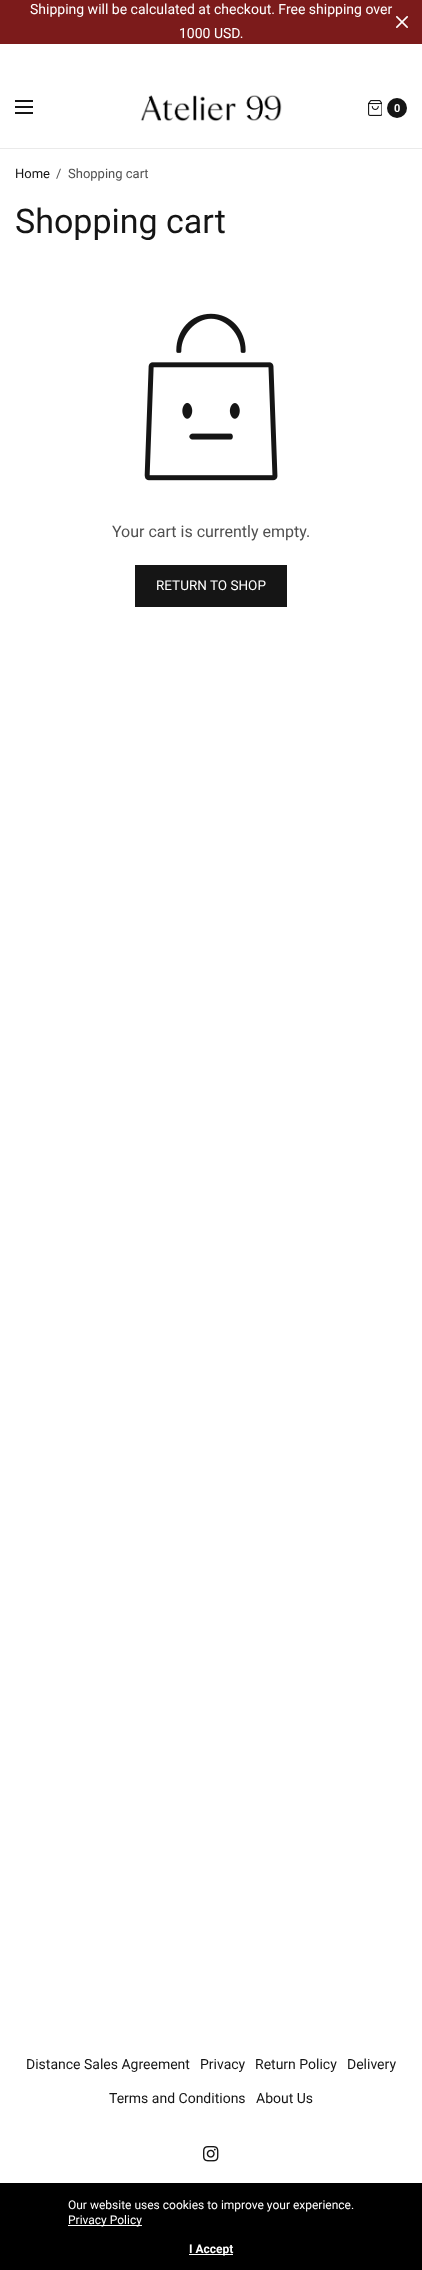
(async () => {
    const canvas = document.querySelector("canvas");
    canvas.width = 422;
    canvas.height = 2270;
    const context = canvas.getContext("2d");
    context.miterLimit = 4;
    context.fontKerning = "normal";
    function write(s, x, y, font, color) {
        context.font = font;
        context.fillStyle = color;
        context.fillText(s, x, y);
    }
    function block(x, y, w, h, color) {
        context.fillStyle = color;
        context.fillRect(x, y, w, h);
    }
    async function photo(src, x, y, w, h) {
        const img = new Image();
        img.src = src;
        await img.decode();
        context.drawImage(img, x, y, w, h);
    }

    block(0, 0, 422, 2270, "rgb(255, 255, 255)");
    block(0, 0, 422, 44, "rgb(124, 27, 27)");
    write("Shipping will be calculated at checkout. Free shipping over", 30, 14, "14px Roboto", "rgb(255, 255, 255)");
    write("1000 USD.", 179, 38, "14px Roboto", "rgb(255, 255, 255)");
    await photo("media/1.png", 396, 16, 12, 12);
    block(0, 148, 422, 1, "rgb(234, 234, 234)");
    block(15, 100, 18, 2, "rgb(21, 21, 21)");
    block(15, 106, 18, 2, "rgb(21, 21, 21)");
    block(15, 112, 18, 2, "rgb(21, 21, 21)");
    await photo("media/2.png", 140, 95, 142, 27);
    await photo("media/3.png", 368, 100, 14, 16);
    context.beginPath();
    context.arc(397, 108, 10, 0, Math.PI * 2);
    context.fill();
    write("0", 394, 112, "bold 11px Roboto", "rgb(255, 255, 255)");
    write("Home", 15, 178, "13px Roboto", "rgb(21, 21, 21)");
    write("/", 56, 178, "13px Roboto", "rgb(80, 80, 80)");
    write("Shopping cart", 68, 178, "13px Roboto", "rgb(80, 80, 80)");
    write("Shopping cart", 15, 233, "34px Roboto", "rgb(21, 21, 21)");
    await photo("media/4.png", 144, 313, 134, 168);
    write("Your cart is currently empty.", 112, 537, "16px Roboto", "rgb(80, 80, 80)");
    block(135, 565, 152, 42, "rgb(21, 21, 21)");
    write("RETURN TO SHOP", 156, 590, "13.5px Roboto", "rgb(255, 255, 255)");
    write("Distance Sales Agreement", 26, 2069, "14px Roboto", "rgb(21, 21, 21)");
    write("Privacy", 200, 2069, "14px Roboto", "rgb(21, 21, 21)");
    write("Return Policy", 255, 2069, "14px Roboto", "rgb(21, 21, 21)");
    write("Delivery", 347, 2069, "14px Roboto", "rgb(21, 21, 21)");
    write("Terms and Conditions", 109, 2103, "14px Roboto", "rgb(21, 21, 21)");
    write("About Us", 256, 2103, "14px Roboto", "rgb(21, 21, 21)");
    await photo("media/5.png", 203, 2146, 16, 16);
    block(0, 2183, 422, 87, "rgb(0, 0, 0)");
    write("Our website uses cookies to improve your experience.", 68, 2209, "12px Roboto", "rgb(255, 255, 255)");
    block(68, 2225, 74, 1, "rgb(255, 255, 255)");
    write("Privacy Policy", 68, 2224, "12px Roboto", "rgb(255, 255, 255)");
    block(189, 2254, 44, 1, "rgb(255, 255, 255)");
    write("I Accept", 189, 2253, "bold 12px Roboto", "rgb(255, 255, 255)");
})();
